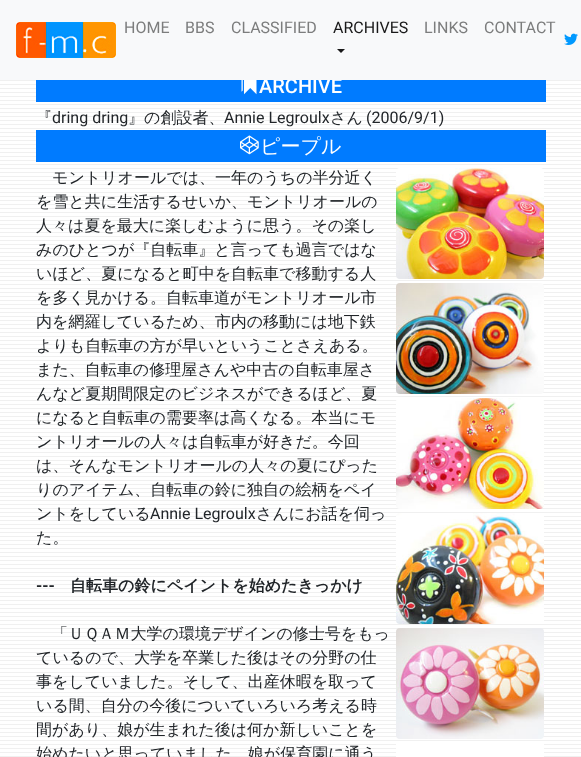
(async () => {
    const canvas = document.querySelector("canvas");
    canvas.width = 581;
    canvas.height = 757;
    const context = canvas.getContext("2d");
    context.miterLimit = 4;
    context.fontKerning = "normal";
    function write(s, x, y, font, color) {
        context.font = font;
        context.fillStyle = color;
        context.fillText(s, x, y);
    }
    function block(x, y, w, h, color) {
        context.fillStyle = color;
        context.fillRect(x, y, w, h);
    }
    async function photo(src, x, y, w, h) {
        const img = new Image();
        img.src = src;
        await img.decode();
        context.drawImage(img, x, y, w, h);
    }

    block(0, 0, 581, 757, "rgb(255, 255, 255)");
    await photo("media/1.png", 0, 80, 581, 677);
    block(36, 80, 510, 22, "rgb(0, 123, 255)");
    write("ARCHIVE", 259, 93, "500 20px Roboto", "rgb(255, 255, 255)");
    block(0, 0, 581, 80, "rgb(248, 249, 250)");
    await photo("media/2.png", 16, 22, 100, 36);
    write("HOME", 124, 33, "16px Roboto", "rgb(124, 125, 125)");
    write("BBS", 185, 33, "16px Roboto", "rgb(124, 125, 125)");
    write("CLASSIFIED", 231, 33, "16px Roboto", "rgb(124, 125, 125)");
    write("ARCHIVES", 333, 33, "16px Roboto", "rgb(25, 25, 25)");
    context.beginPath();
    context.moveTo(337, 49);
    context.lineTo(345, 49);
    context.lineTo(341, 53);
    context.closePath();
    context.fill();
    write("LINKS", 424, 33, "16px Roboto", "rgb(124, 125, 125)");
    write("CONTACT", 484, 33, "16px Roboto", "rgb(124, 125, 125)");
    await photo("media/3.png", 564, 33, 14, 12);
    await photo("media/4.png", 241, 80, 16, 15);
    write("『", 36, 123, "500 16px WenQuanYi Zen Hei", "rgb(33, 37, 41)");
    write("dring dring", 52, 123, "16px Roboto", "rgb(33, 37, 41)");
    write("』の創設者、", 128, 123, "500 16px WenQuanYi Zen Hei", "rgb(33, 37, 41)");
    write("Annie Legroulx", 224, 123, "16px Roboto", "rgb(33, 37, 41)");
    write("さん", 330, 123, "500 16px WenQuanYi Zen Hei", "rgb(33, 37, 41)");
    write("(2006/9/1)", 366, 123, "16px Roboto", "rgb(33, 37, 41)");
    block(36, 130, 510, 32, "rgb(0, 123, 255)");
    await photo("media/5.png", 240, 135, 19, 20);
    write("ピープル", 260, 153, "500 20px WenQuanYi Zen Hei", "rgb(255, 255, 255)");
    write("モントリオールでは、一年のうちの半分近く", 52, 183, "500 16px WenQuanYi Zen Hei", "rgb(33, 37, 41)");
    await photo("media/6.png", 396, 168, 148, 111);
    await photo("media/7.png", 396, 283, 148, 111);
    await photo("media/8.png", 396, 398, 148, 111);
    await photo("media/9.png", 396, 513, 148, 111);
    await photo("media/10.png", 396, 628, 148, 111);
    block(396, 744, 148, 13, "rgb(255, 255, 255)");
    write("を雪と共に生活するせいか、モントリオールの", 36, 207, "500 16px WenQuanYi Zen Hei", "rgb(33, 37, 41)");
    write("人々は夏を最大に楽しむように思う。その楽し", 36, 231, "500 16px WenQuanYi Zen Hei", "rgb(33, 37, 41)");
    write("みのひとつが『自転車』と言っても過言ではな", 36, 255, "500 16px WenQuanYi Zen Hei", "rgb(33, 37, 41)");
    write("いほど、夏になると町中を自転車で移動する人", 36, 279, "500 16px WenQuanYi Zen Hei", "rgb(33, 37, 41)");
    write("を多く見かける。自転車道がモントリオール市", 36, 303, "500 16px WenQuanYi Zen Hei", "rgb(33, 37, 41)");
    write("内を網羅しているため、市内の移動には地下鉄", 36, 327, "500 16px WenQuanYi Zen Hei", "rgb(33, 37, 41)");
    write("よりも自転車の方が早いということさえある。", 36, 351, "500 16px WenQuanYi Zen Hei", "rgb(33, 37, 41)");
    write("また、自転車の修理屋さんや中古の自転車屋さ", 36, 375, "500 16px WenQuanYi Zen Hei", "rgb(33, 37, 41)");
    write("んなど夏期間限定のビジネスができるほど、夏", 36, 399, "500 16px WenQuanYi Zen Hei", "rgb(33, 37, 41)");
    write("になると自転車の需要率は高くなる。本当にモ", 36, 423, "500 16px WenQuanYi Zen Hei", "rgb(33, 37, 41)");
    write("ントリオールの人々は自転車が好きだ。今回", 36, 447, "500 16px WenQuanYi Zen Hei", "rgb(33, 37, 41)");
    write("は、そんなモントリオールの人々の夏にぴった", 36, 471, "500 16px WenQuanYi Zen Hei", "rgb(33, 37, 41)");
    write("りのアイテム、自転車の鈴に独自の絵柄をペイ", 36, 495, "500 16px WenQuanYi Zen Hei", "rgb(33, 37, 41)");
    write("ントをしている", 36, 519, "500 16px WenQuanYi Zen Hei", "rgb(33, 37, 41)");
    write("Annie Legroulx", 150, 519, "16px Roboto", "rgb(33, 37, 41)");
    write("さんにお話を伺っ", 256, 519, "500 16px WenQuanYi Zen Hei", "rgb(33, 37, 41)");
    write("た。", 36, 543, "500 16px WenQuanYi Zen Hei", "rgb(33, 37, 41)");
    write("---", 36, 591, "bold 16px Roboto", "rgb(33, 37, 41)");
    write("自転車の鈴にペイントを始めたきっかけ", 70, 591, "bold 16px WenQuanYi Zen Hei", "rgb(33, 37, 41)");
    write("「ＵＱＡＭ大学の環境デザインの修士号をもっ", 52, 639, "500 16px WenQuanYi Zen Hei", "rgb(33, 37, 41)");
    write("ているので、大学を卒業した後はその分野の仕", 36, 663, "500 16px WenQuanYi Zen Hei", "rgb(33, 37, 41)");
    write("事をしていました。そして、出産休暇を取って", 36, 687, "500 16px WenQuanYi Zen Hei", "rgb(33, 37, 41)");
    write("いる間、自分の今後についていろいろ考える時", 36, 711, "500 16px WenQuanYi Zen Hei", "rgb(33, 37, 41)");
    write("間があり、娘が生まれた後は何か新しいことを", 36, 735, "500 16px WenQuanYi Zen Hei", "rgb(33, 37, 41)");
    write("始めたいと思っていました。娘が保育園に通う", 36, 759, "500 16px WenQuanYi Zen Hei", "rgb(33, 37, 41)");
})();
